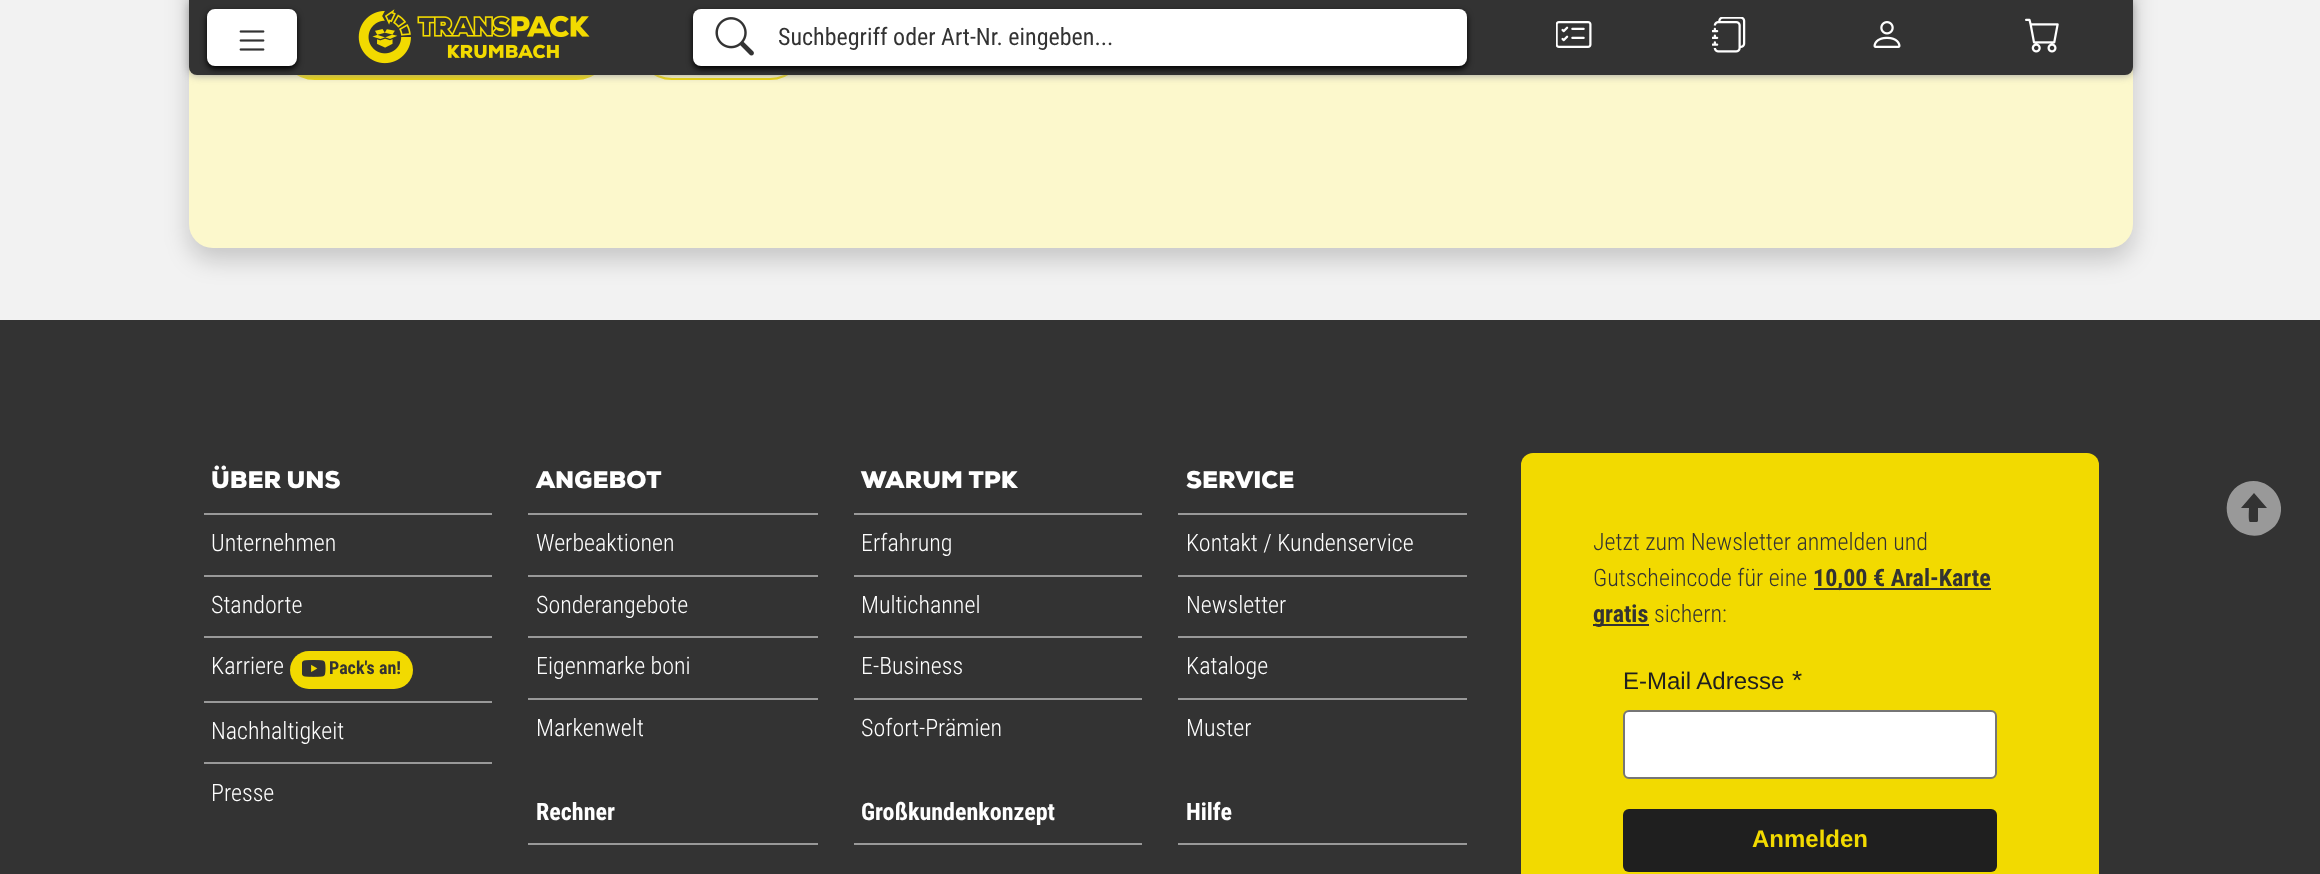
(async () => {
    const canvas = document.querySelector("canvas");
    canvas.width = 2320;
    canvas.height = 874;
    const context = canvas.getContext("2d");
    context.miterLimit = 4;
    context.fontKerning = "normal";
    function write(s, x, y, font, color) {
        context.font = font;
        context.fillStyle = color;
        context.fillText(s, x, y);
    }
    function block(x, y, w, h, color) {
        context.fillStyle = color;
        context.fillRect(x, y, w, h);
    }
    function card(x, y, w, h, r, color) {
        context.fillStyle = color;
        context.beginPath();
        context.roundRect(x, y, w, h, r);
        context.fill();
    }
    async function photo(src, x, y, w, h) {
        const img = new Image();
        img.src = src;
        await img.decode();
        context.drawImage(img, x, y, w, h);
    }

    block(0, 0, 2320, 874, "rgb(242, 242, 242)");
    context.fillStyle = "rgba(0, 0, 0, 0.18)";
    context.filter = "blur(12px)";
    context.beginPath();
    context.roundRect(189, -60, 1944, 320, 24);
    context.fill();
    context.filter = "none";
    card(189, -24, 1944, 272, 24, "rgb(252, 248, 204)");
    context.fillStyle = "rgb(242, 218, 0)";
    context.beginPath();
    context.roundRect(280, 9, 331, 70, 35);
    context.fill();
    context.strokeStyle = "rgb(242, 218, 0)";
    context.lineWidth = 2;
    context.stroke();
    context.beginPath();
    context.roundRect(637, 9, 168, 70, 35);
    context.stroke();
    context.fillStyle = "rgb(153, 153, 153)";
    context.filter = "blur(4px)";
    context.beginPath();
    context.roundRect(189, 0, 1944, 75, 8);
    context.fill();
    context.filter = "none";
    context.fillStyle = "rgb(51, 51, 51)";
    context.beginPath();
    context.roundRect(189, 0, 1944, 75, [0, 0, 8, 8]);
    context.fill();
    context.fillStyle = "rgb(0, 0, 0)";
    context.filter = "blur(3px)";
    context.beginPath();
    context.roundRect(207, 12, 90, 57, 8);
    context.fill();
    context.filter = "none";
    context.fillStyle = "rgb(255, 255, 255)";
    context.beginPath();
    context.roundRect(208, 10, 88, 55, 7);
    context.fill();
    context.strokeStyle = "rgb(255, 255, 255)";
    context.stroke();
    await photo("media/1.png", 239, 30, 26, 21);
    await photo("media/2.png", 358, 9, 232, 55);
    context.fillStyle = "rgb(0, 0, 0)";
    context.filter = "blur(3px)";
    context.beginPath();
    context.roundRect(693, 12, 774, 57, 8);
    context.fill();
    context.filter = "none";
    card(693, 9, 774, 57, 8, "rgb(255, 255, 255)");
    await photo("media/3.png", 715, 17, 39, 39);
    write("Suchbegriff oder Art-Nr. eingeben...", 778, 45, "24px Roboto Condensed", "rgb(51, 51, 51)");
    await photo("media/4.png", 1556, 21, 36, 27);
    await photo("media/5.png", 1712, 17, 34, 36);
    await photo("media/6.png", 1873, 21, 28, 27);
    await photo("media/7.png", 2025, 18, 34, 35);
    block(0, 320, 2320, 554, "rgb(51, 51, 51)");
    block(204, 513, 288, 2, "rgb(153, 153, 153)");
    write("ÜBER UNS", 211, 488, "24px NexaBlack", "rgb(255, 255, 255)");
    block(204, 575, 288, 2, "rgb(153, 153, 153)");
    write("Unternehmen", 211, 551, "300 24px Roboto Condensed", "rgb(255, 255, 255)");
    block(204, 636, 288, 2, "rgb(153, 153, 153)");
    write("Standorte", 211, 613, "300 24px Roboto Condensed", "rgb(255, 255, 255)");
    block(204, 701, 288, 2, "rgb(153, 153, 153)");
    write("Karriere", 211, 674, "300 24px Roboto Condensed", "rgb(255, 255, 255)");
    card(290, 651, 123, 38, 19, "rgb(242, 218, 0)");
    await photo("media/8.png", 302, 660, 24, 17);
    write("Pack's an!", 329, 674, "bold 18px Roboto Condensed", "rgb(51, 51, 51)");
    block(204, 762, 288, 2, "rgb(153, 153, 153)");
    write("Nachhaltigkeit", 211, 739, "300 24px Roboto Condensed", "rgb(255, 255, 255)");
    write("Presse", 211, 801, "300 24px Roboto Condensed", "rgb(255, 255, 255)");
    block(528, 513, 290, 2, "rgb(153, 153, 153)");
    write("ANGEBOT", 536, 488, "24px NexaBlack", "rgb(255, 255, 255)");
    block(528, 575, 290, 2, "rgb(153, 153, 153)");
    write("Werbeaktionen", 536, 551, "300 24px Roboto Condensed", "rgb(255, 255, 255)");
    block(528, 636, 290, 2, "rgb(153, 153, 153)");
    write("Sonderangebote", 536, 613, "300 24px Roboto Condensed", "rgb(255, 255, 255)");
    block(528, 698, 290, 2, "rgb(153, 153, 153)");
    write("Eigenmarke boni", 536, 674, "300 24px Roboto Condensed", "rgb(255, 255, 255)");
    write("Markenwelt", 536, 736, "300 24px Roboto Condensed", "rgb(255, 255, 255)");
    block(528, 843, 290, 2, "rgb(153, 153, 153)");
    write("Rechner", 536, 820, "bold 24px Roboto Condensed", "rgb(255, 255, 255)");
    block(854, 513, 288, 2, "rgb(153, 153, 153)");
    write("WARUM TPK", 861, 488, "24px NexaBlack", "rgb(255, 255, 255)");
    block(854, 575, 288, 2, "rgb(153, 153, 153)");
    write("Erfahrung", 861, 551, "300 24px Roboto Condensed", "rgb(255, 255, 255)");
    block(854, 636, 288, 2, "rgb(153, 153, 153)");
    write("Multichannel", 861, 613, "300 24px Roboto Condensed", "rgb(255, 255, 255)");
    block(854, 698, 288, 2, "rgb(153, 153, 153)");
    write("E-Business", 861, 674, "300 24px Roboto Condensed", "rgb(255, 255, 255)");
    write("Sofort-Prämien", 861, 736, "300 24px Roboto Condensed", "rgb(255, 255, 255)");
    block(854, 843, 288, 2, "rgb(153, 153, 153)");
    write("Großkundenkonzept", 861, 820, "bold 24px Roboto Condensed", "rgb(255, 255, 255)");
    block(1178, 513, 289, 2, "rgb(153, 153, 153)");
    write("SERVICE", 1186, 488, "24px NexaBlack", "rgb(255, 255, 255)");
    block(1178, 575, 289, 2, "rgb(153, 153, 153)");
    write("Kontakt / Kundenservice", 1186, 551, "300 24px Roboto Condensed", "rgb(255, 255, 255)");
    block(1178, 636, 289, 2, "rgb(153, 153, 153)");
    write("Newsletter", 1186, 613, "300 24px Roboto Condensed", "rgb(255, 255, 255)");
    block(1178, 698, 289, 2, "rgb(153, 153, 153)");
    write("Kataloge", 1186, 674, "300 24px Roboto Condensed", "rgb(255, 255, 255)");
    write("Muster", 1186, 736, "300 24px Roboto Condensed", "rgb(255, 255, 255)");
    block(1178, 843, 289, 2, "rgb(153, 153, 153)");
    write("Hilfe", 1186, 820, "bold 24px Roboto Condensed", "rgb(255, 255, 255)");
    card(1521, 453, 578, 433, 12, "rgb(242, 218, 0)");
    write("Jetzt zum Newsletter anmelden und", 1593, 550, "300 24px Roboto Condensed", "rgb(51, 51, 51)");
    write("Gutscheincode für eine", 1593, 586, "300 24px Roboto Condensed", "rgb(51, 51, 51)");
    block(1814, 588, 177, 2, "rgb(51, 51, 51)");
    write("10,00 € Aral-Karte", 1813, 586, "bold 24px Roboto Condensed", "rgb(51, 51, 51)");
    block(1593, 624, 56, 2, "rgb(51, 51, 51)");
    write("gratis", 1593, 622, "bold 24px Roboto Condensed", "rgb(51, 51, 51)");
    write("sichern:", 1654, 622, "300 24px Roboto Condensed", "rgb(51, 51, 51)");
    write("E-Mail Adresse", 1623, 689, "24px Liberation Sans", "rgb(31, 31, 31)");
    write("*", 1792, 689, "26px Liberation Sans", "rgb(31, 31, 31)");
    context.fillStyle = "rgb(255, 255, 255)";
    context.beginPath();
    context.roundRect(1624, 711, 372, 67, 5);
    context.fill();
    context.strokeStyle = "rgb(118, 118, 118)";
    context.stroke();
    card(1623, 809, 374, 63, 6, "rgb(31, 31, 31)");
    write("Anmelden", 1752, 847, "bold 24px Liberation Sans", "rgb(242, 218, 0)");
    context.fillStyle = "rgb(153, 153, 153)";
    context.beginPath();
    context.moveTo(2261, 535);
    context.bezierCurveTo(2256, 536, 2250, 536, 2245, 534);
    context.bezierCurveTo(2220, 526, 2221, 489, 2246, 482);
    context.bezierCurveTo(2271, 475, 2292, 505, 2275, 526);
    context.bezierCurveTo(2271, 530, 2266, 533, 2261, 535);
    context.closePath();
    context.moveTo(2250, 522);
    context.lineTo(2255, 522);
    context.bezierCurveTo(2258, 522, 2258, 522, 2258, 519);
    context.lineTo(2258, 508);
    context.lineTo(2267, 508);
    context.lineTo(2254, 493);
    context.lineTo(2241, 508);
    context.lineTo(2249, 508);
    context.bezierCurveTo(2249, 510, 2248, 522, 2250, 522);
    context.closePath();
    context.fill();
})();
